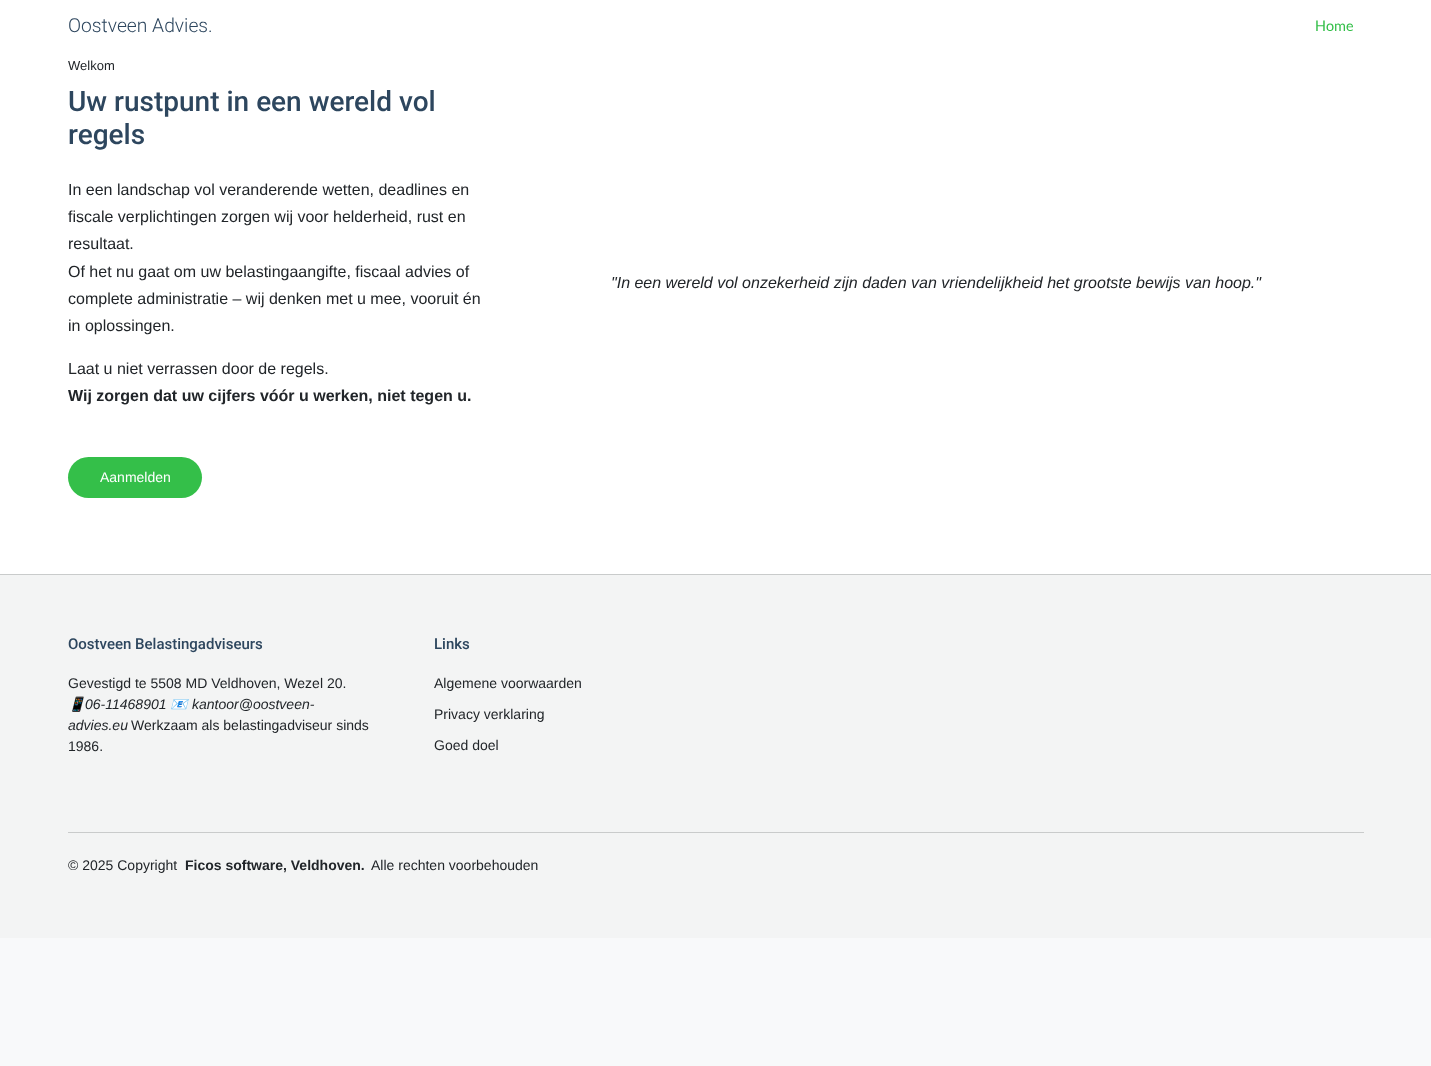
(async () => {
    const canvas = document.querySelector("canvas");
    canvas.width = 1431;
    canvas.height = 1066;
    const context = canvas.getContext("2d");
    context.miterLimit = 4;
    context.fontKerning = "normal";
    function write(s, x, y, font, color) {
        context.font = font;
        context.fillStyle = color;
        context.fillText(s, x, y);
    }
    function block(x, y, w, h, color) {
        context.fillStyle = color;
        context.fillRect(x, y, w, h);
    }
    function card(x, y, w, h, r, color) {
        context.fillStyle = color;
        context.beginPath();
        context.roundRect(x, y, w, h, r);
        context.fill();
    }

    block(0, 0, 1431, 1066, "rgb(248, 249, 250)");
    block(0, 0, 1431, 574, "rgb(255, 255, 255)");
    write("Oostveen Advies.", 68, 32, "300 19.25px Roboto", "rgb(45, 70, 94)");
    write("Home", 1315, 31, "14.5px Lato", "rgb(52, 191, 73)");
    write("Welkom", 68, 70, "13px Liberation Sans", "rgb(33, 37, 41)");
    write("Uw rustpunt in een wereld vol", 68, 111, "500 28px Roboto", "rgb(45, 70, 94)");
    write("regels", 68, 144, "500 28px Roboto", "rgb(45, 70, 94)");
    write("In een landschap vol veranderende wetten, deadlines en", 68, 195, "16px Liberation Sans", "rgb(33, 37, 41)");
    write("fiscale verplichtingen zorgen wij voor helderheid, rust en", 68, 222, "16px Liberation Sans", "rgb(33, 37, 41)");
    write("resultaat.", 68, 249, "16px Liberation Sans", "rgb(33, 37, 41)");
    write("Of het nu gaat om uw belastingaangifte, fiscaal advies of", 68, 277, "16px Liberation Sans", "rgb(33, 37, 41)");
    write("complete administratie – wij denken met u mee, vooruit én", 68, 304, "16px Liberation Sans", "rgb(33, 37, 41)");
    write("in oplossingen.", 68, 331, "16px Liberation Sans", "rgb(33, 37, 41)");
    write("Laat u niet verrassen door de regels.", 68, 374, "16px Liberation Sans", "rgb(33, 37, 41)");
    write("Wij zorgen dat uw cijfers vóór u werken, niet tegen u.", 68, 401, "bold 16px Liberation Sans", "rgb(33, 37, 41)");
    card(68, 457, 134, 41, 20.5, "rgb(52, 191, 73)");
    write("Aanmelden", 100, 482, "14px Liberation Sans", "rgb(255, 255, 255)");
    write("\"In een wereld vol onzekerheid zijn daden van vriendelijkheid het grootste bewijs van hoop.\"", 611, 288, "italic 16px Liberation Sans", "rgb(33, 37, 41)");
    block(0, 575, 1431, 363, "rgb(243, 244, 244)");
    block(0, 574, 1431, 1, "rgb(201, 203, 203)");
    write("Oostveen Belastingadviseurs", 68, 649, "500 15px Roboto", "rgb(45, 70, 94)");
    write("Gevestigd te 5508 MD Veldhoven, Wezel 20.", 68, 688, "14px Liberation Sans", "rgb(33, 37, 41)");
    write("📱", 68, 709, "italic 14px Noto Color Emoji", "rgb(33, 37, 41)");
    write("06-11468901", 85, 709, "italic 14px Liberation Sans", "rgb(33, 37, 41)");
    write("📧", 170, 709, "italic 14px Noto Color Emoji", "rgb(33, 37, 41)");
    write("kantoor@oostveen-", 192, 709, "italic 14px Liberation Sans", "rgb(33, 37, 41)");
    write("advies.eu", 68, 730, "italic 14px Liberation Sans", "rgb(33, 37, 41)");
    write("Werkzaam als belastingadviseur sinds", 131, 730, "14px Liberation Sans", "rgb(33, 37, 41)");
    write("1986.", 68, 751, "14px Liberation Sans", "rgb(33, 37, 41)");
    write("Links", 434, 649, "500 15px Roboto", "rgb(45, 70, 94)");
    write("Algemene voorwaarden", 434, 688, "14px Liberation Sans", "rgb(33, 37, 41)");
    write("Privacy verklaring", 434, 719, "14px Liberation Sans", "rgb(33, 37, 41)");
    write("Goed doel", 434, 750, "14px Liberation Sans", "rgb(33, 37, 41)");
    block(68, 832, 1296, 1, "rgb(201, 203, 203)");
    write("© 2025 Copyright", 68, 870, "14px Liberation Sans", "rgb(33, 37, 41)");
    write("Ficos software, Veldhoven.", 185, 870, "bold 14px Liberation Sans", "rgb(33, 37, 41)");
    write("Alle rechten voorbehouden", 371, 870, "14px Liberation Sans", "rgb(33, 37, 41)");
})();
